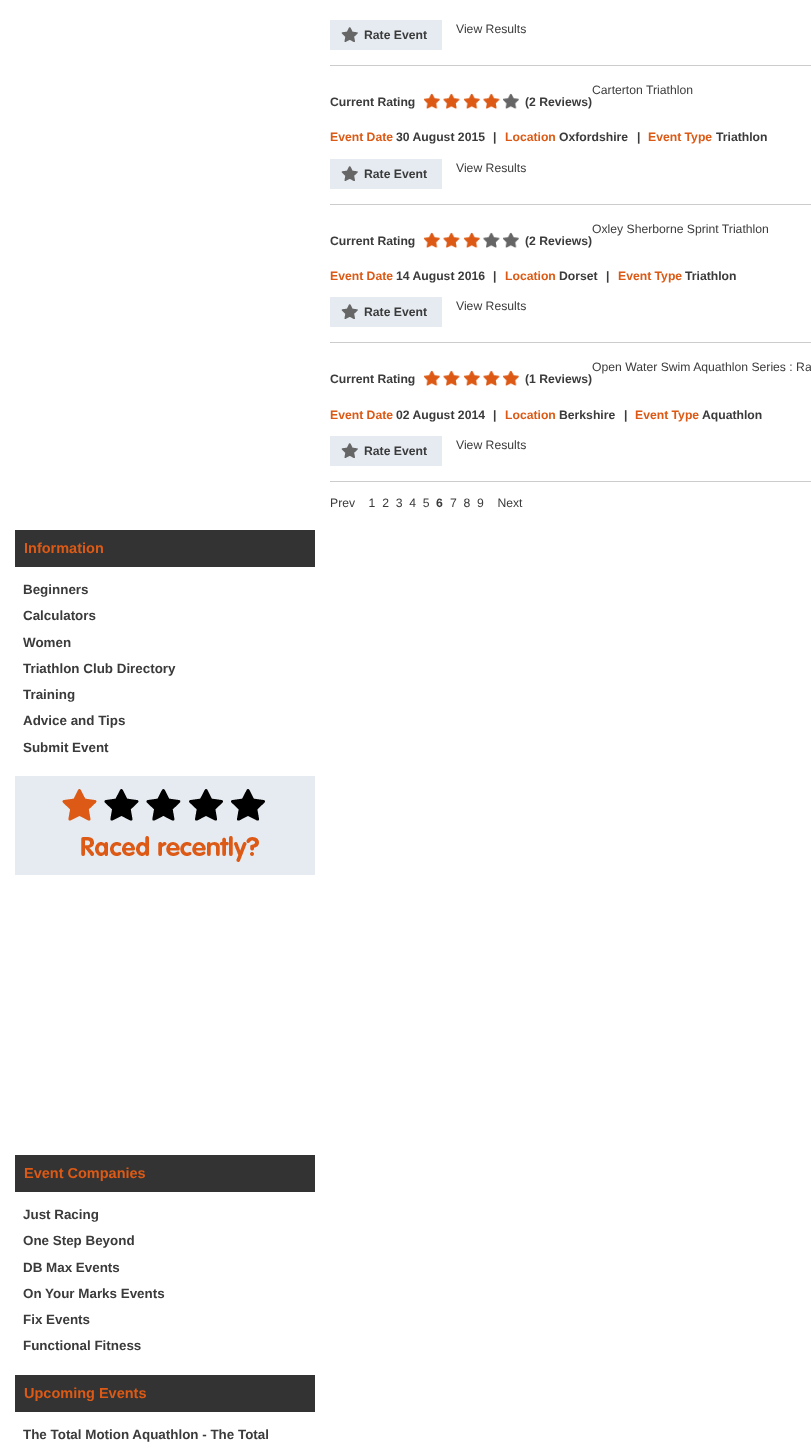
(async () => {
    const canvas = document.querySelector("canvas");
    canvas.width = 811;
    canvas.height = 1454;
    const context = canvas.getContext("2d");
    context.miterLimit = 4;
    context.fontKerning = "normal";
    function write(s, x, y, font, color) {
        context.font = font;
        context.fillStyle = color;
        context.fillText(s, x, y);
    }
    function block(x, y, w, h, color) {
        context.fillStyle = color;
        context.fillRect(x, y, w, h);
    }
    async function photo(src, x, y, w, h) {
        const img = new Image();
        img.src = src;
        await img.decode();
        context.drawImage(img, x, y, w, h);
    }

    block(0, 0, 811, 1454, "rgb(255, 255, 255)");
    block(330, 65, 481, 1, "rgb(204, 204, 204)");
    write("View Results", 456, 33, "12.2px Liberation Sans", "rgb(59, 59, 59)");
    block(330, 20, 112, 30, "rgb(229, 235, 241)");
    await photo("media/1.png", 341, 27, 17, 15);
    write("Rate Event", 364, 39, "bold 12.2px Liberation Sans", "rgb(59, 59, 59)");
    block(330, 204, 481, 1, "rgb(204, 204, 204)");
    write("Carterton Triathlon", 592, 94, "12.2px Liberation Sans", "rgb(59, 59, 59)");
    write("Current Rating", 330, 106, "bold 12.2px Liberation Sans", "rgb(59, 59, 59)");
    await photo("media/2.png", 424, 93, 95, 16);
    write("(2 Reviews)", 525, 106, "bold 12.2px Liberation Sans", "rgb(59, 59, 59)");
    write("Event Date", 330, 141, "bold 12.2px Liberation Sans", "rgb(220, 90, 21)");
    write("30 August 2015", 396, 141, "bold 12.2px Liberation Sans", "rgb(59, 59, 59)");
    write("|", 493, 141, "bold 12.2px Liberation Sans", "rgb(59, 59, 59)");
    write("Location", 505, 141, "bold 12.2px Liberation Sans", "rgb(220, 90, 21)");
    write("Oxfordshire", 559, 141, "bold 12.2px Liberation Sans", "rgb(59, 59, 59)");
    write("|", 637, 141, "bold 12.2px Liberation Sans", "rgb(59, 59, 59)");
    write("Event Type", 648, 141, "bold 12.2px Liberation Sans", "rgb(220, 90, 21)");
    write("Triathlon", 716, 141, "bold 12.2px Liberation Sans", "rgb(59, 59, 59)");
    write("View Results", 456, 172, "12.2px Liberation Sans", "rgb(59, 59, 59)");
    block(330, 159, 112, 30, "rgb(229, 235, 241)");
    await photo("media/1.png", 341, 166, 17, 15);
    write("Rate Event", 364, 178, "bold 12.2px Liberation Sans", "rgb(59, 59, 59)");
    block(330, 342, 481, 1, "rgb(204, 204, 204)");
    write("Oxley Sherborne Sprint Triathlon", 592, 233, "12.2px Liberation Sans", "rgb(59, 59, 59)");
    write("Current Rating", 330, 245, "bold 12.2px Liberation Sans", "rgb(59, 59, 59)");
    await photo("media/3.png", 424, 232, 95, 16);
    write("(2 Reviews)", 525, 245, "bold 12.2px Liberation Sans", "rgb(59, 59, 59)");
    write("Event Date", 330, 280, "bold 12.2px Liberation Sans", "rgb(220, 90, 21)");
    write("14 August 2016", 396, 280, "bold 12.2px Liberation Sans", "rgb(59, 59, 59)");
    write("|", 493, 280, "bold 12.2px Liberation Sans", "rgb(59, 59, 59)");
    write("Location", 505, 280, "bold 12.2px Liberation Sans", "rgb(220, 90, 21)");
    write("Dorset", 559, 280, "bold 12.2px Liberation Sans", "rgb(59, 59, 59)");
    write("|", 606, 280, "bold 12.2px Liberation Sans", "rgb(59, 59, 59)");
    write("Event Type", 618, 280, "bold 12.2px Liberation Sans", "rgb(220, 90, 21)");
    write("Triathlon", 685, 280, "bold 12.2px Liberation Sans", "rgb(59, 59, 59)");
    write("View Results", 456, 310, "12.2px Liberation Sans", "rgb(59, 59, 59)");
    block(330, 297, 112, 30, "rgb(229, 235, 241)");
    await photo("media/1.png", 341, 304, 17, 15);
    write("Rate Event", 364, 316, "bold 12.2px Liberation Sans", "rgb(59, 59, 59)");
    block(330, 481, 481, 1, "rgb(204, 204, 204)");
    write("Open Water Swim Aquathlon Series : Ra", 592, 371, "12.2px Liberation Sans", "rgb(59, 59, 59)");
    write("Current Rating", 330, 383, "bold 12.2px Liberation Sans", "rgb(59, 59, 59)");
    await photo("media/4.png", 424, 370, 95, 16);
    write("(1 Reviews)", 525, 383, "bold 12.2px Liberation Sans", "rgb(59, 59, 59)");
    write("Event Date", 330, 419, "bold 12.2px Liberation Sans", "rgb(220, 90, 21)");
    write("02 August 2014", 396, 419, "bold 12.2px Liberation Sans", "rgb(59, 59, 59)");
    write("|", 493, 419, "bold 12.2px Liberation Sans", "rgb(59, 59, 59)");
    write("Location", 505, 419, "bold 12.2px Liberation Sans", "rgb(220, 90, 21)");
    write("Berkshire", 559, 419, "bold 12.2px Liberation Sans", "rgb(59, 59, 59)");
    write("|", 624, 419, "bold 12.2px Liberation Sans", "rgb(59, 59, 59)");
    write("Event Type", 635, 419, "bold 12.2px Liberation Sans", "rgb(220, 90, 21)");
    write("Aquathlon", 702, 419, "bold 12.2px Liberation Sans", "rgb(59, 59, 59)");
    write("View Results", 456, 449, "12.2px Liberation Sans", "rgb(59, 59, 59)");
    block(330, 436, 112, 30, "rgb(229, 235, 241)");
    await photo("media/1.png", 341, 443, 17, 15);
    write("Rate Event", 364, 455, "bold 12.2px Liberation Sans", "rgb(59, 59, 59)");
    write("Prev    1  2  3  4  5", 330, 507, "12.2px Liberation Sans", "rgb(59, 59, 59)");
    write("6", 436, 507, "bold 12.2px Liberation Sans", "rgb(59, 59, 59)");
    write("7  8  9    Next", 450, 507, "12.2px Liberation Sans", "rgb(59, 59, 59)");
    block(15, 530, 300, 37, "rgb(51, 51, 51)");
    write("Information", 24, 553, "bold 14.5px Liberation Sans", "rgb(220, 90, 21)");
    write("Beginners", 23, 594, "bold 13.4px Liberation Sans", "rgb(59, 59, 59)");
    write("Calculators", 23, 620, "bold 13.4px Liberation Sans", "rgb(59, 59, 59)");
    write("Women", 23, 647, "bold 13.4px Liberation Sans", "rgb(59, 59, 59)");
    write("Triathlon Club Directory", 23, 673, "bold 13.4px Liberation Sans", "rgb(59, 59, 59)");
    write("Training", 23, 699, "bold 13.4px Liberation Sans", "rgb(59, 59, 59)");
    write("Advice and Tips", 23, 725, "bold 13.4px Liberation Sans", "rgb(59, 59, 59)");
    write("Submit Event", 23, 752, "bold 13.4px Liberation Sans", "rgb(59, 59, 59)");
    await photo("media/5.png", 15, 776, 300, 99);
    block(15, 1155, 300, 37, "rgb(51, 51, 51)");
    write("Event Companies", 24, 1178, "bold 14.5px Liberation Sans", "rgb(220, 90, 21)");
    write("Just Racing", 23, 1219, "bold 13.4px Liberation Sans", "rgb(59, 59, 59)");
    write("One Step Beyond", 23, 1245, "bold 13.4px Liberation Sans", "rgb(59, 59, 59)");
    write("DB Max Events", 23, 1272, "bold 13.4px Liberation Sans", "rgb(59, 59, 59)");
    write("On Your Marks Events", 23, 1298, "bold 13.4px Liberation Sans", "rgb(59, 59, 59)");
    write("Fix Events", 23, 1324, "bold 13.4px Liberation Sans", "rgb(59, 59, 59)");
    write("Functional Fitness", 23, 1350, "bold 13.4px Liberation Sans", "rgb(59, 59, 59)");
    block(15, 1375, 300, 37, "rgb(51, 51, 51)");
    write("Upcoming Events", 24, 1398, "bold 14.5px Liberation Sans", "rgb(220, 90, 21)");
    write("The Total Motion Aquathlon - The Total", 23, 1439, "bold 13.4px Liberation Sans", "rgb(59, 59, 59)");
})();
